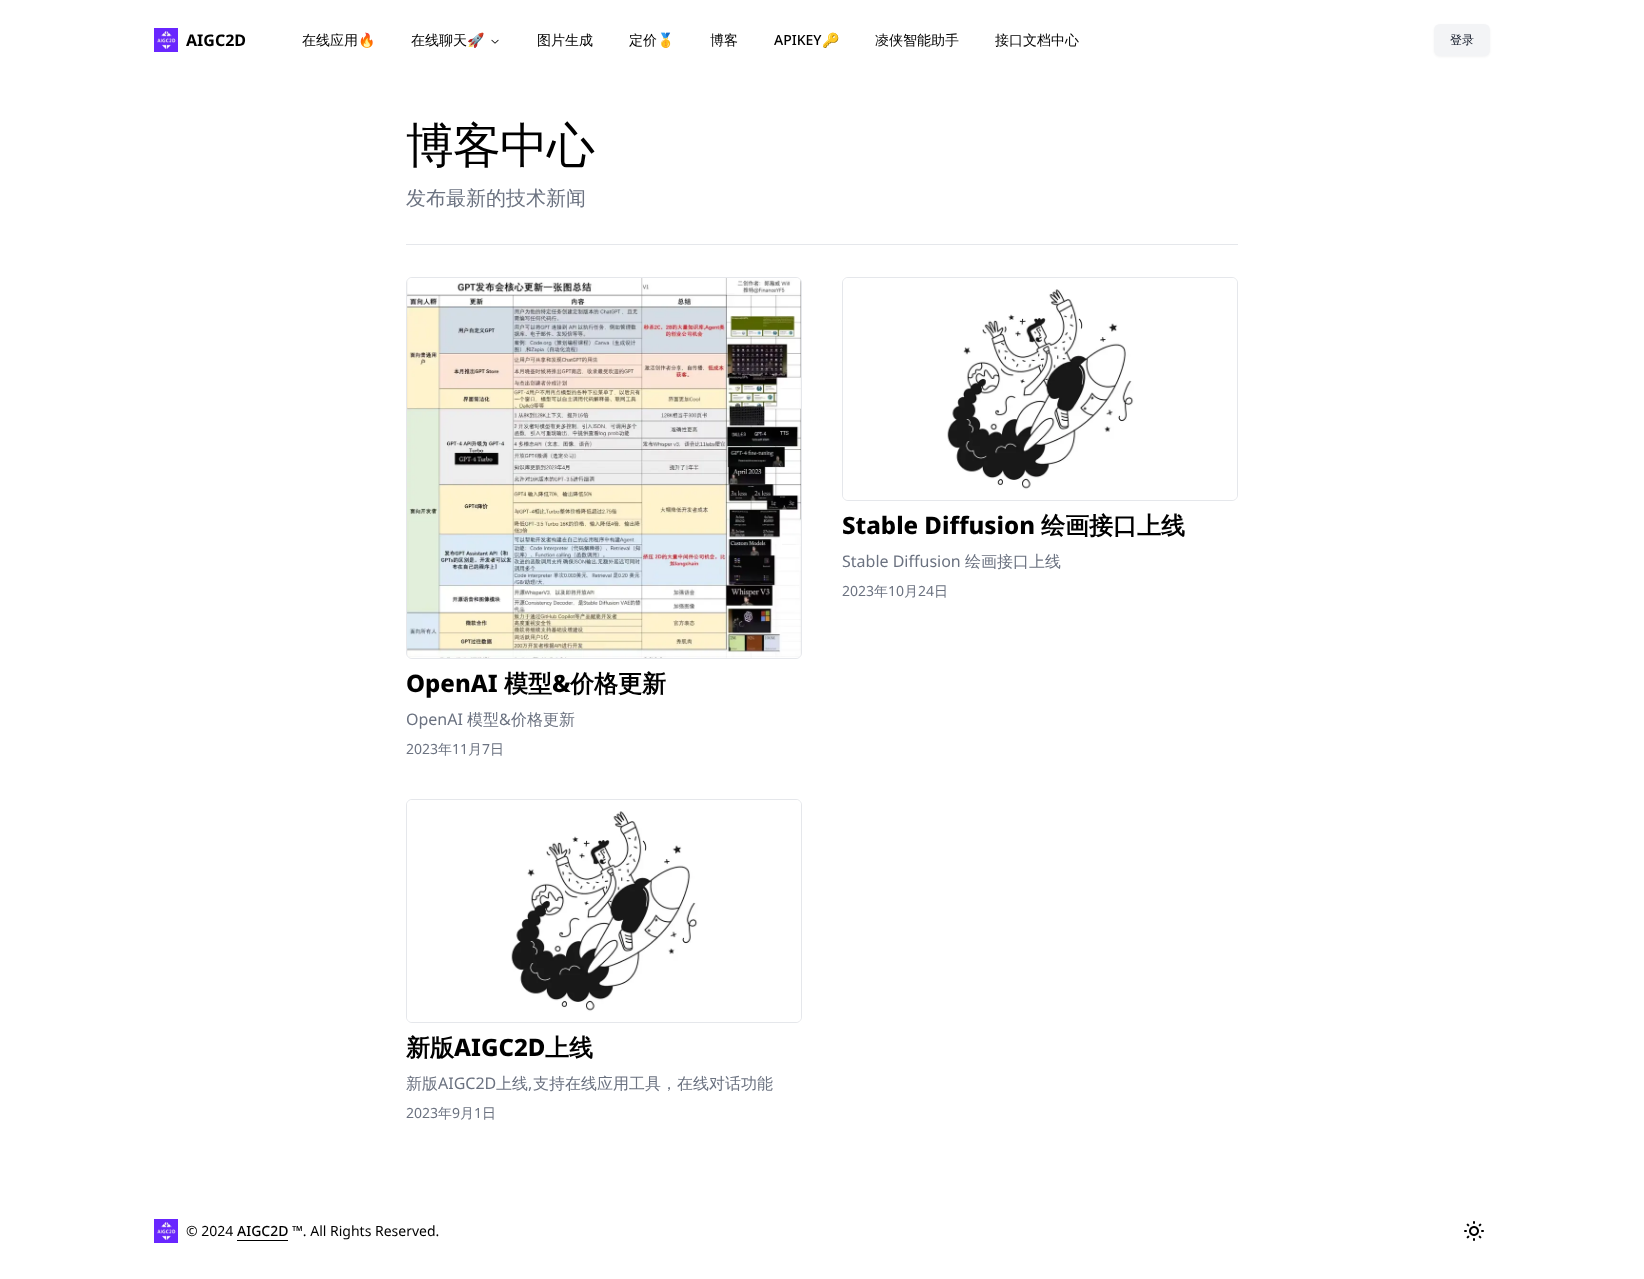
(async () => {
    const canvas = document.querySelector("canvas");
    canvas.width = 1644;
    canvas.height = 1279;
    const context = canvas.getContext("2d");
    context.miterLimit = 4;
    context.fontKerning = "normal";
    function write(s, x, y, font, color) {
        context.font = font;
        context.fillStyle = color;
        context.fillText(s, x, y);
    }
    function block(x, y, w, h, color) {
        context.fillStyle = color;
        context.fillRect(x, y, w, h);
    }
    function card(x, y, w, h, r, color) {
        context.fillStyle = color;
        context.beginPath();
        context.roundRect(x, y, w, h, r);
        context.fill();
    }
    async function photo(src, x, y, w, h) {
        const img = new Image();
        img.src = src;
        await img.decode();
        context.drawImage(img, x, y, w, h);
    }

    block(0, 0, 1644, 1279, "rgb(255, 255, 255)");
    await photo("media/1.png", 154, 28, 24, 24);
    write("AIGC2D", 186, 46, "bold 16px Noto Sans", "rgb(0, 0, 0)");
    write("在线应用", 302, 45, "500 14px WenQuanYi Zen Hei", "rgb(0, 0, 0)");
    write("🔥", 358, 45, "14px Noto Color Emoji", "rgb(0, 0, 0)");
    write("在线聊天", 411, 45, "500 14px WenQuanYi Zen Hei", "rgb(0, 0, 0)");
    write("🚀", 467, 45, "14px Noto Color Emoji", "rgb(0, 0, 0)");
    await photo("media/2.png", 491, 39, 8, 5);
    write("图片生成", 537, 45, "500 14px WenQuanYi Zen Hei", "rgb(0, 0, 0)");
    write("定价", 629, 45, "500 14px WenQuanYi Zen Hei", "rgb(0, 0, 0)");
    write("🥇", 657, 45, "14px Noto Color Emoji", "rgb(0, 0, 0)");
    write("博客", 710, 45, "500 14px WenQuanYi Zen Hei", "rgb(0, 0, 0)");
    write("APIKEY", 774, 45, "500 14px Noto Sans", "rgb(0, 0, 0)");
    write("🔑", 822, 45, "14px Noto Color Emoji", "rgb(0, 0, 0)");
    write("凌侠智能助手", 875, 45, "500 14px WenQuanYi Zen Hei", "rgb(0, 0, 0)");
    write("接口文档中心", 995, 45, "500 14px WenQuanYi Zen Hei", "rgb(0, 0, 0)");
    context.fillStyle = "rgba(0, 0, 0, 0.05)";
    context.filter = "blur(1px)";
    context.beginPath();
    context.roundRect(1434, 25, 56, 32, 6);
    context.fill();
    context.filter = "none";
    card(1434, 24, 56, 32, 6, "rgb(243, 244, 246)");
    write("登录", 1450, 44, "500 12px WenQuanYi Zen Hei", "rgb(17, 24, 39)");
    context.letterSpacing = "-1px";
    write("博客中心", 406, 162, "500 48px WenQuanYi Zen Hei", "rgb(0, 0, 0)");
    context.letterSpacing = "0px";
    write("发布最新的技术新闻", 406, 205, "500 20px WenQuanYi Zen Hei", "rgb(107, 114, 128)");
    block(406, 244, 832, 1, "rgb(229, 231, 235)");
    context.beginPath();
    context.roundRect(842.5, 277.5, 395, 223, 5.5);
    context.strokeStyle = "rgb(229, 231, 235)";
    context.stroke();
    await photo("media/3.png", 843, 278, 394, 222);
    write("Stable Diffusion", 842, 534, "800 24px Noto Sans", "rgb(0, 0, 0)");
    write("绘画接口上线", 1041, 534, "bold 24px WenQuanYi Zen Hei", "rgb(0, 0, 0)");
    write("Stable Diffusion", 842, 567, "16px Noto Sans", "rgb(107, 114, 128)");
    write("绘画接口上线", 965, 567, "500 16px WenQuanYi Zen Hei", "rgb(107, 114, 128)");
    write("2023", 842, 596, "14px Noto Sans", "rgb(107, 114, 128)");
    write("年", 874, 596, "500 14px WenQuanYi Zen Hei", "rgb(107, 114, 128)");
    write("10", 888, 596, "14px Noto Sans", "rgb(107, 114, 128)");
    write("月", 904, 596, "500 14px WenQuanYi Zen Hei", "rgb(107, 114, 128)");
    write("24", 918, 596, "14px Noto Sans", "rgb(107, 114, 128)");
    write("日", 934, 596, "500 14px WenQuanYi Zen Hei", "rgb(107, 114, 128)");
    context.beginPath();
    context.roundRect(406.5, 277.5, 395, 381, 5.5);
    context.stroke();
    await photo("media/4.png", 407, 278, 394, 380);
    write("OpenAI", 406, 692, "800 24px Noto Sans", "rgb(0, 0, 0)");
    write("模型", 504, 692, "bold 24px WenQuanYi Zen Hei", "rgb(0, 0, 0)");
    write("&", 552, 692, "800 24px Noto Sans", "rgb(0, 0, 0)");
    write("价格更新", 570, 692, "bold 24px WenQuanYi Zen Hei", "rgb(0, 0, 0)");
    write("OpenAI", 406, 725, "16px Noto Sans", "rgb(107, 114, 128)");
    write("模型", 467, 725, "500 16px WenQuanYi Zen Hei", "rgb(107, 114, 128)");
    write("&", 499, 725, "16px Noto Sans", "rgb(107, 114, 128)");
    write("价格更新", 511, 725, "500 16px WenQuanYi Zen Hei", "rgb(107, 114, 128)");
    write("2023", 406, 754, "14px Noto Sans", "rgb(107, 114, 128)");
    write("年", 438, 754, "500 14px WenQuanYi Zen Hei", "rgb(107, 114, 128)");
    write("11", 452, 754, "14px Noto Sans", "rgb(107, 114, 128)");
    write("月", 468, 754, "500 14px WenQuanYi Zen Hei", "rgb(107, 114, 128)");
    write("7", 482, 754, "14px Noto Sans", "rgb(107, 114, 128)");
    write("日", 490, 754, "500 14px WenQuanYi Zen Hei", "rgb(107, 114, 128)");
    context.beginPath();
    context.roundRect(406.5, 799.5, 395, 223, 5.5);
    context.stroke();
    await photo("media/3.png", 407, 800, 394, 222);
    write("新版", 406, 1056, "bold 24px WenQuanYi Zen Hei", "rgb(0, 0, 0)");
    write("AIGC2D", 454, 1056, "800 24px Noto Sans", "rgb(0, 0, 0)");
    write("上线", 545, 1056, "bold 24px WenQuanYi Zen Hei", "rgb(0, 0, 0)");
    write("新版", 406, 1089, "500 16px WenQuanYi Zen Hei", "rgb(107, 114, 128)");
    write("AIGC2D", 438, 1089, "16px Noto Sans", "rgb(107, 114, 128)");
    write("上线", 496, 1089, "500 16px WenQuanYi Zen Hei", "rgb(107, 114, 128)");
    write(",", 528, 1089, "16px Noto Sans", "rgb(107, 114, 128)");
    write("支持在线应用工具，在线对话功能", 533, 1089, "500 16px WenQuanYi Zen Hei", "rgb(107, 114, 128)");
    write("2023", 406, 1118, "14px Noto Sans", "rgb(107, 114, 128)");
    write("年", 438, 1118, "500 14px WenQuanYi Zen Hei", "rgb(107, 114, 128)");
    write("9", 452, 1118, "14px Noto Sans", "rgb(107, 114, 128)");
    write("月", 460, 1118, "500 14px WenQuanYi Zen Hei", "rgb(107, 114, 128)");
    write("1", 474, 1118, "14px Noto Sans", "rgb(107, 114, 128)");
    write("日", 482, 1118, "500 14px WenQuanYi Zen Hei", "rgb(107, 114, 128)");
    await photo("media/1.png", 154, 1219, 24, 24);
    write("© 2024", 186, 1236, "14px Noto Sans", "rgb(0, 0, 0)");
    write("AIGC2D", 237, 1236, "500 14px Noto Sans", "rgb(0, 0, 0)");
    block(237, 1240, 51, 1, "rgb(0, 0, 0)");
    write("™. All Rights Reserved.", 292, 1236, "14px Noto Sans", "rgb(0, 0, 0)");
    await photo("media/5.png", 1464, 1221, 20, 20);
})();
